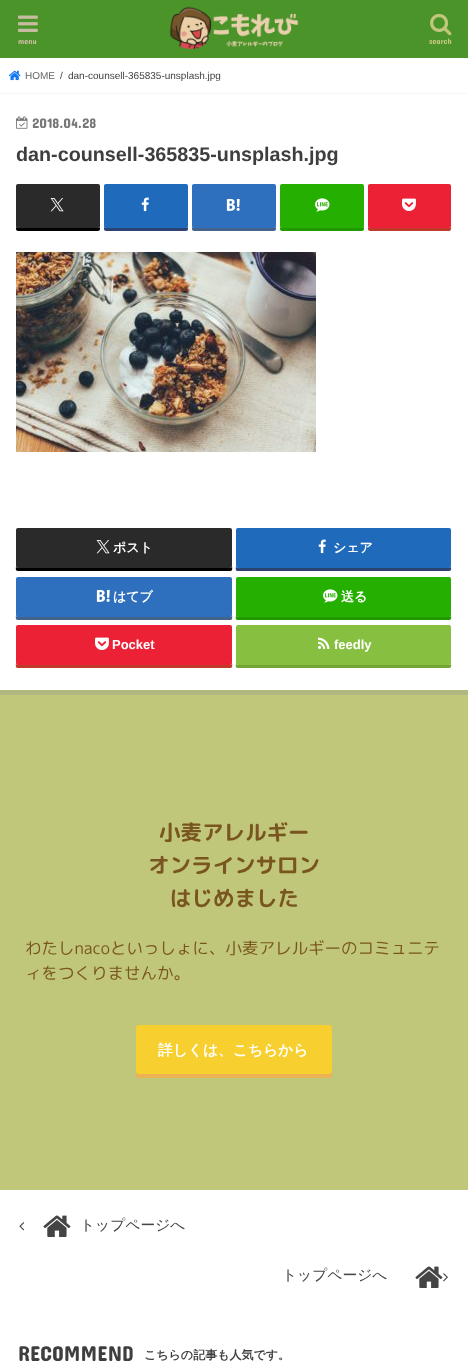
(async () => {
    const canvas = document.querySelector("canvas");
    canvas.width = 468;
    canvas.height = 1366;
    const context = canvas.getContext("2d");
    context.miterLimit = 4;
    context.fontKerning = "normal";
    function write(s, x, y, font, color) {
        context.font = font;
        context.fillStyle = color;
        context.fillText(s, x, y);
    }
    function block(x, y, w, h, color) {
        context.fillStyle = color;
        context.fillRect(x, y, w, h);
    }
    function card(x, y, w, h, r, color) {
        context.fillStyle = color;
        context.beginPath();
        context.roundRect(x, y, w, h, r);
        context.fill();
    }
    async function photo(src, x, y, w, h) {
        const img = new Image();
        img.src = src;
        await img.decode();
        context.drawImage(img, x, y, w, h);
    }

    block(0, 0, 468, 1366, "rgb(255, 255, 255)");
    block(0, 0, 468, 58, "rgb(74, 148, 42)");
    await photo("media/1.png", 18, 15, 20, 17);
    write("menu", 18, 44, "8px Concert One", "rgb(200, 188, 160)");
    await photo("media/2.png", 169, 6, 130, 44);
    await photo("media/3.png", 430, 13, 22, 23);
    write("search", 429, 44, "8px Concert One", "rgb(192, 198, 122)");
    block(0, 93, 468, 1, "rgb(247, 247, 247)");
    await photo("media/4.png", 8, 70, 13, 11);
    write("HOME", 25, 79, "10px Liberation Sans", "rgb(102, 102, 102)");
    write("/", 60, 79, "10px Liberation Sans", "rgb(62, 62, 62)");
    write("dan-counsell-365835-unsplash.jpg", 68, 79, "10px Liberation Sans", "rgb(62, 62, 62)");
    context.fillStyle = "rgb(221, 221, 221)";
    context.filter = "blur(0.5px)";
    context.beginPath();
    context.rect(0, 94, 468, 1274);
    context.fill();
    context.filter = "none";
    block(0, 94, 468, 1272, "rgb(255, 255, 255)");
    await photo("media/5.png", 16, 116, 12, 13);
    write("2018.04.28", 32, 128, "14px Concert One", "rgb(120, 120, 120)");
    write("dan-counsell-365835-unsplash.jpg", 16, 161, "bold 19.75px Liberation Sans", "rgb(62, 62, 62)");
    context.fillStyle = "rgb(0, 0, 0)";
    context.beginPath();
    context.moveTo(16, 226);
    context.lineTo(16, 229);
    context.bezierCurveTo(16, 230, 17, 231, 18, 231);
    context.lineTo(98, 231);
    context.bezierCurveTo(99, 231, 100, 230, 100, 229);
    context.lineTo(100, 226);
    context.bezierCurveTo(100, 227, 99, 228, 98, 228);
    context.lineTo(17, 228);
    context.closePath();
    context.fill();
    card(16, 184, 84, 44, 2, "rgb(42, 42, 42)");
    await photo("media/6.png", 50, 198, 14, 14);
    context.fillStyle = "rgb(44, 67, 115)";
    context.beginPath();
    context.moveTo(104, 226);
    context.lineTo(104, 229);
    context.bezierCurveTo(104, 230, 105, 231, 106, 231);
    context.lineTo(186, 231);
    context.bezierCurveTo(187, 231, 188, 230, 188, 229);
    context.lineTo(188, 226);
    context.bezierCurveTo(188, 227, 187, 228, 186, 228);
    context.lineTo(105, 228);
    context.closePath();
    context.fill();
    card(104, 184, 84, 44, 2, "rgb(31, 106, 186)");
    await photo("media/7.png", 141, 197, 8, 15);
    context.fillStyle = "rgb(67, 99, 139)";
    context.beginPath();
    context.moveTo(192, 226);
    context.lineTo(192, 229);
    context.bezierCurveTo(192, 230, 193, 231, 194, 231);
    context.lineTo(274, 231);
    context.bezierCurveTo(275, 231, 276, 230, 276, 229);
    context.lineTo(276, 226);
    context.bezierCurveTo(276, 227, 275, 228, 274, 228);
    context.lineTo(193, 228);
    context.closePath();
    context.fill();
    card(192, 184, 84, 44, 2, "rgb(47, 112, 190)");
    await photo("media/8.png", 226, 198, 14, 13);
    context.fillStyle = "rgb(33, 153, 0)";
    context.beginPath();
    context.moveTo(280, 226);
    context.lineTo(280, 229);
    context.bezierCurveTo(280, 230, 281, 231, 282, 231);
    context.lineTo(362, 231);
    context.bezierCurveTo(363, 231, 364, 230, 364, 229);
    context.lineTo(364, 226);
    context.bezierCurveTo(364, 227, 363, 228, 362, 228);
    context.lineTo(281, 228);
    context.closePath();
    context.fill();
    card(280, 184, 84, 44, 2, "rgb(37, 175, 0)");
    await photo("media/9.png", 315, 198, 15, 14);
    context.fillStyle = "rgb(192, 57, 43)";
    context.beginPath();
    context.moveTo(368, 226);
    context.lineTo(368, 229);
    context.bezierCurveTo(368, 230, 369, 231, 370, 231);
    context.lineTo(449, 231);
    context.bezierCurveTo(450, 231, 451, 230, 451, 229);
    context.lineTo(451, 226);
    context.bezierCurveTo(451, 227, 450, 228, 449, 228);
    context.lineTo(369, 228);
    context.closePath();
    context.fill();
    card(368, 184, 83, 44, 2, "rgb(236, 33, 54)");
    await photo("media/10.png", 402, 198, 14, 13);
    await photo("media/11.png", 16, 252, 300, 200);
    context.fillStyle = "rgb(0, 0, 0)";
    context.beginPath();
    context.moveTo(16, 566);
    context.bezierCurveTo(16, 568, 15, 571, 18, 571);
    context.lineTo(231, 571);
    context.bezierCurveTo(233, 570, 232, 567, 232, 566);
    context.bezierCurveTo(232, 567, 231, 568, 230, 568);
    context.lineTo(18, 568);
    context.bezierCurveTo(17, 568, 16, 567, 16, 566);
    context.closePath();
    context.fill();
    card(16, 528, 216, 40, 2, "rgb(42, 42, 42)");
    await photo("media/6.png", 96, 540, 14, 14);
    write("ポスト", 113, 552, "bold 13px WenQuanYi Zen Hei", "rgb(255, 255, 255)");
    context.fillStyle = "rgb(44, 67, 115)";
    context.beginPath();
    context.moveTo(236, 566);
    context.bezierCurveTo(236, 567, 235, 570, 237, 571);
    context.lineTo(449, 571);
    context.bezierCurveTo(452, 571, 451, 568, 451, 566);
    context.bezierCurveTo(451, 567, 450, 568, 449, 568);
    context.lineTo(238, 568);
    context.bezierCurveTo(237, 568, 236, 567, 236, 566);
    context.closePath();
    context.fill();
    card(236, 528, 215, 40, 2, "rgb(31, 106, 186)");
    await photo("media/7.png", 318, 539, 8, 15);
    write("シェア", 333, 552, "bold 13px WenQuanYi Zen Hei", "rgb(255, 255, 255)");
    context.fillStyle = "rgb(67, 99, 139)";
    context.beginPath();
    context.moveTo(16, 615);
    context.bezierCurveTo(16, 617, 15, 620, 18, 620);
    context.lineTo(231, 620);
    context.bezierCurveTo(233, 619, 232, 616, 232, 615);
    context.bezierCurveTo(232, 616, 231, 617, 230, 617);
    context.lineTo(18, 617);
    context.bezierCurveTo(17, 617, 16, 616, 16, 615);
    context.closePath();
    context.fill();
    card(16, 577, 216, 40, 2, "rgb(47, 112, 190)");
    await photo("media/8.png", 96, 589, 14, 13);
    write("はてブ", 113, 601, "bold 13px WenQuanYi Zen Hei", "rgb(255, 255, 255)");
    context.fillStyle = "rgb(33, 153, 0)";
    context.beginPath();
    context.moveTo(236, 615);
    context.bezierCurveTo(236, 616, 235, 619, 237, 620);
    context.lineTo(449, 620);
    context.bezierCurveTo(452, 620, 451, 617, 451, 615);
    context.bezierCurveTo(451, 616, 450, 617, 449, 617);
    context.lineTo(238, 617);
    context.bezierCurveTo(237, 617, 236, 616, 236, 615);
    context.closePath();
    context.fill();
    card(236, 577, 215, 40, 2, "rgb(37, 175, 0)");
    await photo("media/9.png", 323, 589, 15, 14);
    write("送る", 341, 601, "bold 13px WenQuanYi Zen Hei", "rgb(255, 255, 255)");
    context.fillStyle = "rgb(192, 57, 43)";
    context.beginPath();
    context.moveTo(16, 663);
    context.bezierCurveTo(16, 665, 15, 668, 18, 668);
    context.lineTo(231, 668);
    context.bezierCurveTo(233, 667, 232, 664, 232, 663);
    context.bezierCurveTo(232, 664, 231, 665, 230, 665);
    context.lineTo(18, 665);
    context.bezierCurveTo(17, 665, 16, 664, 16, 663);
    context.closePath();
    context.fill();
    card(16, 625, 216, 40, 2, "rgb(236, 33, 54)");
    await photo("media/10.png", 95, 637, 14, 13);
    write("Pocket", 112, 649, "bold 13px Liberation Sans", "rgb(255, 255, 255)");
    context.fillStyle = "rgb(116, 164, 54)";
    context.beginPath();
    context.moveTo(236, 663);
    context.bezierCurveTo(236, 664, 235, 667, 237, 668);
    context.lineTo(449, 668);
    context.bezierCurveTo(452, 668, 451, 665, 451, 663);
    context.bezierCurveTo(451, 664, 450, 665, 449, 665);
    context.lineTo(238, 665);
    context.bezierCurveTo(237, 665, 236, 664, 236, 663);
    context.closePath();
    context.fill();
    card(236, 625, 215, 40, 2, "rgb(135, 192, 64)");
    await photo("media/12.png", 318, 637, 12, 12);
    write("feedly", 334, 649, "bold 13px Liberation Sans", "rgb(255, 255, 255)");
    block(0, 695, 468, 495, "rgb(192, 198, 122)");
    block(0, 690, 468, 5, "rgb(178, 182, 129)");
    write("小麦アレルギー", 159, 840, "bold 21.5px 'Rounded Mplus 1c'", "rgb(121, 86, 31)");
    write("オンラインサロン", 148, 873, "bold 21.5px 'Rounded Mplus 1c'", "rgb(121, 86, 31)");
    write("はじめました", 170, 906, "bold 21.5px 'Rounded Mplus 1c'", "rgb(121, 86, 31)");
    write("わたしnacoといっしょに、小麦アレルギーのコミュニテ", 25, 954, "16.5px 'Rounded Mplus 1c'", "rgb(121, 86, 31)");
    write("ィをつくりませんか。", 25, 979, "16.5px 'Rounded Mplus 1c'", "rgb(121, 86, 31)");
    context.fillStyle = "rgb(236, 178, 84)";
    context.beginPath();
    context.moveTo(136, 1071);
    context.lineTo(136, 1075);
    context.bezierCurveTo(136, 1077, 137, 1078, 139, 1078);
    context.lineTo(329, 1078);
    context.bezierCurveTo(331, 1078, 332, 1077, 332, 1075);
    context.lineTo(332, 1071);
    context.bezierCurveTo(332, 1073, 331, 1074, 329, 1074);
    context.lineTo(138, 1074);
    context.lineTo(137, 1073);
    context.closePath();
    context.fill();
    card(136, 1025, 196, 49, 3, "rgb(247, 207, 46)");
    write("詳しくは、こちらから", 158, 1055, "bold 14.75px WenQuanYi Zen Hei", "rgb(255, 255, 255)");
    await photo("media/13.png", 19, 1222, 6, 9);
    await photo("media/14.png", 43, 1215, 28, 22);
    write("トップページへ", 80, 1230, "500 14.75px WenQuanYi Zen Hei", "rgb(68, 68, 68)");
    write("トップページへ", 282, 1280, "500 14.75px WenQuanYi Zen Hei", "rgb(68, 68, 68)");
    await photo("media/14.png", 415, 1266, 28, 22);
    await photo("media/15.png", 443, 1273, 5, 9);
    write("RECOMMEND", 18, 1361, "21.5px Concert One", "rgb(62, 62, 62)");
    write("こちらの記事も人気です。", 144, 1359, "bold 12px WenQuanYi Zen Hei", "rgb(62, 62, 62)");
})();
